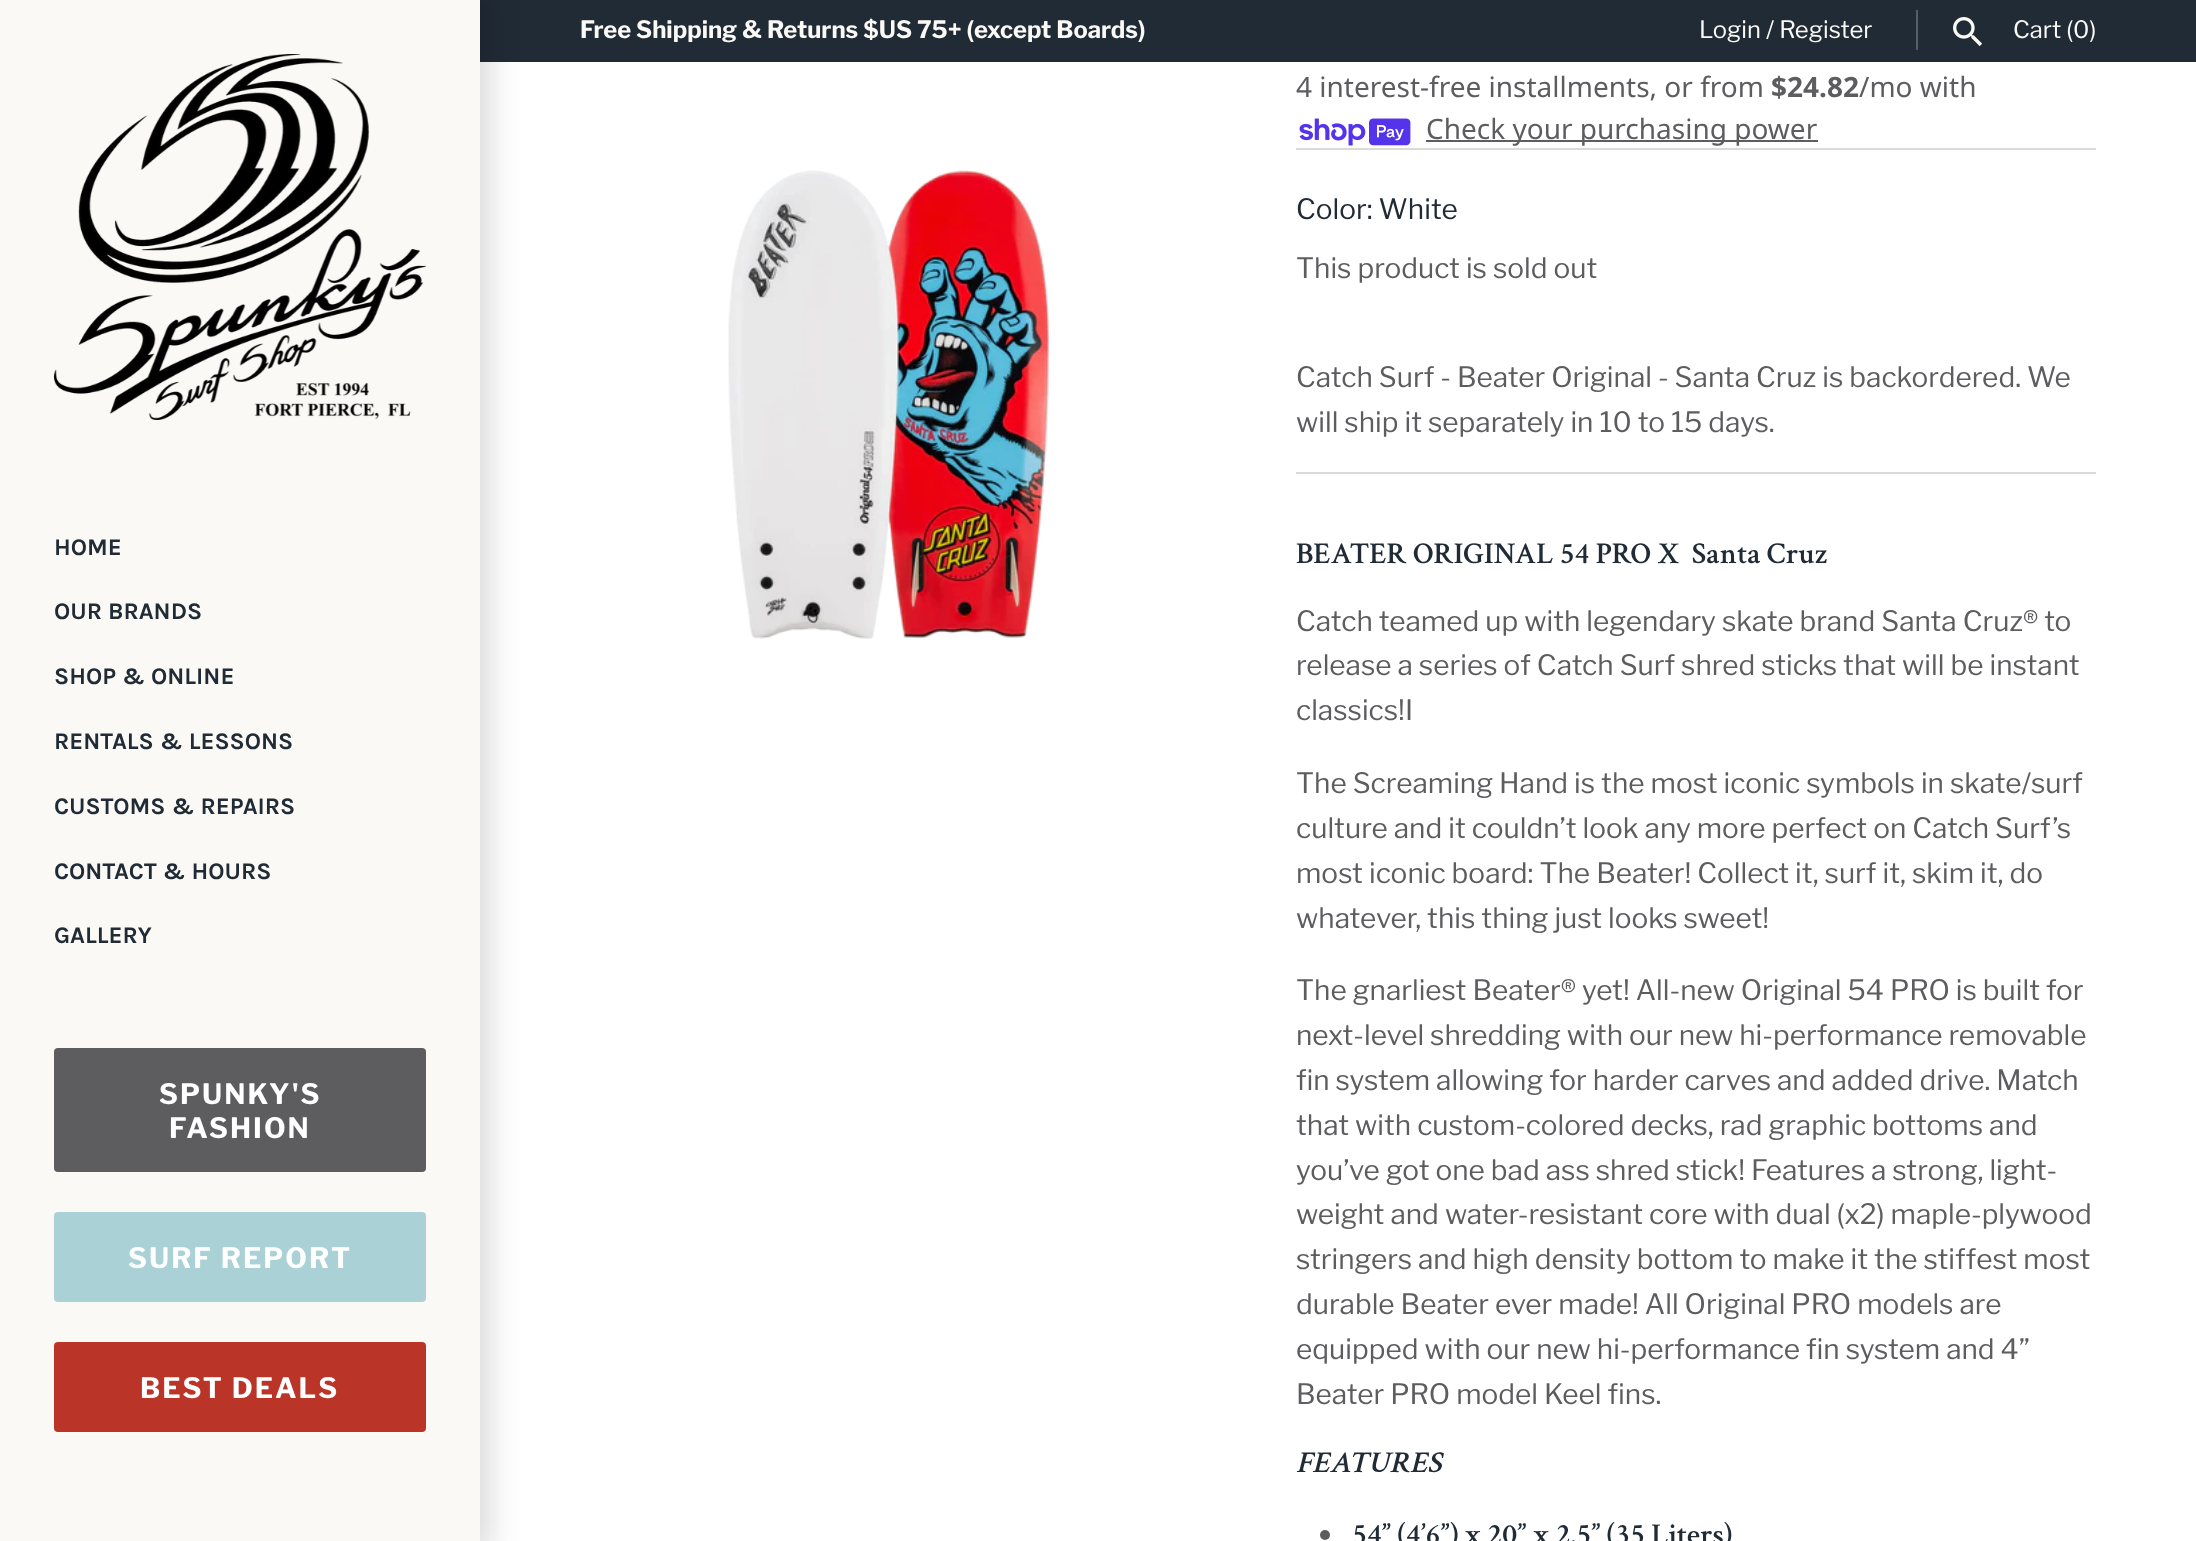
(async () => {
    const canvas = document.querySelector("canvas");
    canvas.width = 2196;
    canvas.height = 1541;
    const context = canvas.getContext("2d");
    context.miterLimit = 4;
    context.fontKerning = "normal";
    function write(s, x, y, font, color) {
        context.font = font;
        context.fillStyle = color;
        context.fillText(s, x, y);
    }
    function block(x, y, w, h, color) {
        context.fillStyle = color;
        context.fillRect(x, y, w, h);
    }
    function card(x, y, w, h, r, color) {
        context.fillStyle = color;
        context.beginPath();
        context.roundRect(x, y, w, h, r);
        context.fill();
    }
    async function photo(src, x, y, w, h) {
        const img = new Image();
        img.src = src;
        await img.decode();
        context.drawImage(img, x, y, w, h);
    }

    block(0, 0, 2196, 1541, "rgb(255, 255, 255)");
    block(480, 0, 1716, 62, "rgb(33, 43, 54)");
    write("Free Shipping & Returns $US 75+ (except Boards)", 580, 38, "bold 23.8px Libre Franklin", "rgb(250, 249, 245)");
    write("Login / Register", 1699, 38, "23.8px Libre Franklin", "rgb(250, 249, 245)");
    block(1916, 10, 2, 40, "rgb(87, 95, 102)");
    await photo("media/1.png", 1953, 17, 30, 30);
    write("Cart (0)", 2013, 38, "23.8px Libre Franklin", "rgb(250, 249, 245)");
    context.fillStyle = "rgba(0, 0, 0, 0.15)";
    context.filter = "blur(15px)";
    context.beginPath();
    context.rect(-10, -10, 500, 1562);
    context.fill();
    context.filter = "none";
    block(0, 0, 480, 1541, "rgb(250, 249, 245)");
    await photo("media/2.png", 54, 54, 372, 366);
    write("HOME", 54, 555, "bold 23.8px Karla", "rgb(33, 43, 54)");
    write("OUR BRANDS", 54, 619, "bold 23.8px Karla", "rgb(33, 43, 54)");
    write("SHOP & ONLINE", 54, 684, "bold 23.8px Karla", "rgb(33, 43, 54)");
    write("RENTALS & LESSONS", 54, 749, "bold 23.8px Karla", "rgb(33, 43, 54)");
    write("CUSTOMS & REPAIRS", 54, 814, "bold 23.8px Karla", "rgb(33, 43, 54)");
    write("CONTACT & HOURS", 54, 879, "bold 23.8px Karla", "rgb(33, 43, 54)");
    write("GALLERY", 54, 943, "bold 23.8px Karla", "rgb(33, 43, 54)");
    card(54, 1048, 372, 124, 4, "rgb(93, 93, 96)");
    context.letterSpacing = "2px";
    write("SPUNKY'S", 159, 1104, "bold 28px Libre Franklin", "rgb(255, 255, 255)");
    write("FASHION", 169, 1138, "bold 28px Libre Franklin", "rgb(255, 255, 255)");
    card(54, 1212, 372, 90, 4, "rgb(169, 209, 214)");
    write("SURF REPORT", 128, 1268, "bold 28px Libre Franklin", "rgb(255, 255, 255)");
    card(54, 1342, 372, 90, 4, "rgb(187, 52, 40)");
    write("BEST DEALS", 140, 1398, "bold 28px Libre Franklin", "rgb(255, 255, 255)");
    await photo("media/3.png", 728, 169, 321, 470);
    context.letterSpacing = "0px";
    write("4 interest-free installments, or from", 1296, 97, "28px Noto Sans", "rgb(93, 93, 96)");
    write("$24.82", 1771, 97, "bold 28px Noto Sans", "rgb(93, 93, 96)");
    write("/mo with", 1859, 97, "28px Noto Sans", "rgb(93, 93, 96)");
    await photo("media/4.png", 1299, 118, 112, 28);
    block(1426, 140, 392, 2, "rgb(93, 93, 96)");
    write("Check your purchasing power", 1426, 139, "28px Noto Sans", "rgb(93, 93, 96)");
    block(1296, 148, 800, 2, "rgb(219, 218, 215)");
    write("Color: White", 1296, 219, "28px Libre Franklin", "rgb(33, 43, 54)");
    write("This product is sold out", 1296, 278, "28px Libre Franklin", "rgb(93, 93, 96)");
    write("Catch Surf - Beater Original - Santa Cruz is backordered. We", 1296, 387, "28px Libre Franklin", "rgb(93, 93, 96)");
    write("will ship it separately in 10 to 15 days.", 1296, 432, "28px Libre Franklin", "rgb(93, 93, 96)");
    block(1296, 472, 800, 2, "rgb(219, 218, 215)");
    write("BEATER ORIGINAL 54 PRO X  Santa Cruz", 1296, 563, "600 30.25px Crimson Text", "rgb(33, 43, 54)");
    write("Catch teamed up with legendary skate brand Santa Cruz® to", 1296, 631, "28px Libre Franklin", "rgb(93, 93, 96)");
    write("release a series of Catch Surf shred sticks that will be instant", 1296, 675, "28px Libre Franklin", "rgb(93, 93, 96)");
    write("classics!I", 1296, 720, "28px Libre Franklin", "rgb(93, 93, 96)");
    write("The Screaming Hand is the most iconic symbols in skate/surf", 1296, 793, "28px Libre Franklin", "rgb(93, 93, 96)");
    write("culture and it couldn’t look any more perfect on Catch Surf’s", 1296, 838, "28px Libre Franklin", "rgb(93, 93, 96)");
    write("most iconic board: The Beater! Collect it, surf it, skim it, do", 1296, 883, "28px Libre Franklin", "rgb(93, 93, 96)");
    write("whatever, this thing just looks sweet!", 1296, 928, "28px Libre Franklin", "rgb(93, 93, 96)");
    write("The gnarliest Beater® yet! All-new Original 54 PRO is built for", 1296, 1000, "28px Libre Franklin", "rgb(93, 93, 96)");
    write("next-level shredding with our new hi-performance removable", 1296, 1045, "28px Libre Franklin", "rgb(93, 93, 96)");
    write("fin system allowing for harder carves and added drive. Match", 1296, 1090, "28px Libre Franklin", "rgb(93, 93, 96)");
    write("that with custom-colored decks, rad graphic bottoms and", 1296, 1135, "28px Libre Franklin", "rgb(93, 93, 96)");
    write("you’ve got one bad ass shred stick! Features a strong, light-", 1296, 1180, "28px Libre Franklin", "rgb(93, 93, 96)");
    write("weight and water-resistant core with dual (x2) maple-plywood", 1296, 1224, "28px Libre Franklin", "rgb(93, 93, 96)");
    write("stringers and high density bottom to make it the stiffest most", 1296, 1269, "28px Libre Franklin", "rgb(93, 93, 96)");
    write("durable Beater ever made! All Original PRO models are", 1296, 1314, "28px Libre Franklin", "rgb(93, 93, 96)");
    write("equipped with our new hi-performance fin system and 4”", 1296, 1359, "28px Libre Franklin", "rgb(93, 93, 96)");
    write("Beater PRO model Keel fins.", 1296, 1404, "28px Libre Franklin", "rgb(93, 93, 96)");
    write("FEATURES", 1296, 1472, "italic 600 30.25px Crimson Text", "rgb(33, 43, 54)");
    context.fillStyle = "rgb(93, 93, 96)";
    context.beginPath();
    context.arc(1325, 1535, 5, 0, Math.PI * 2);
    context.fill();
    write("54” (4’6”) x 20” x 2.5” (35 Liters)", 1352, 1544, "600 30.25px Crimson Text", "rgb(33, 43, 54)");
})();
